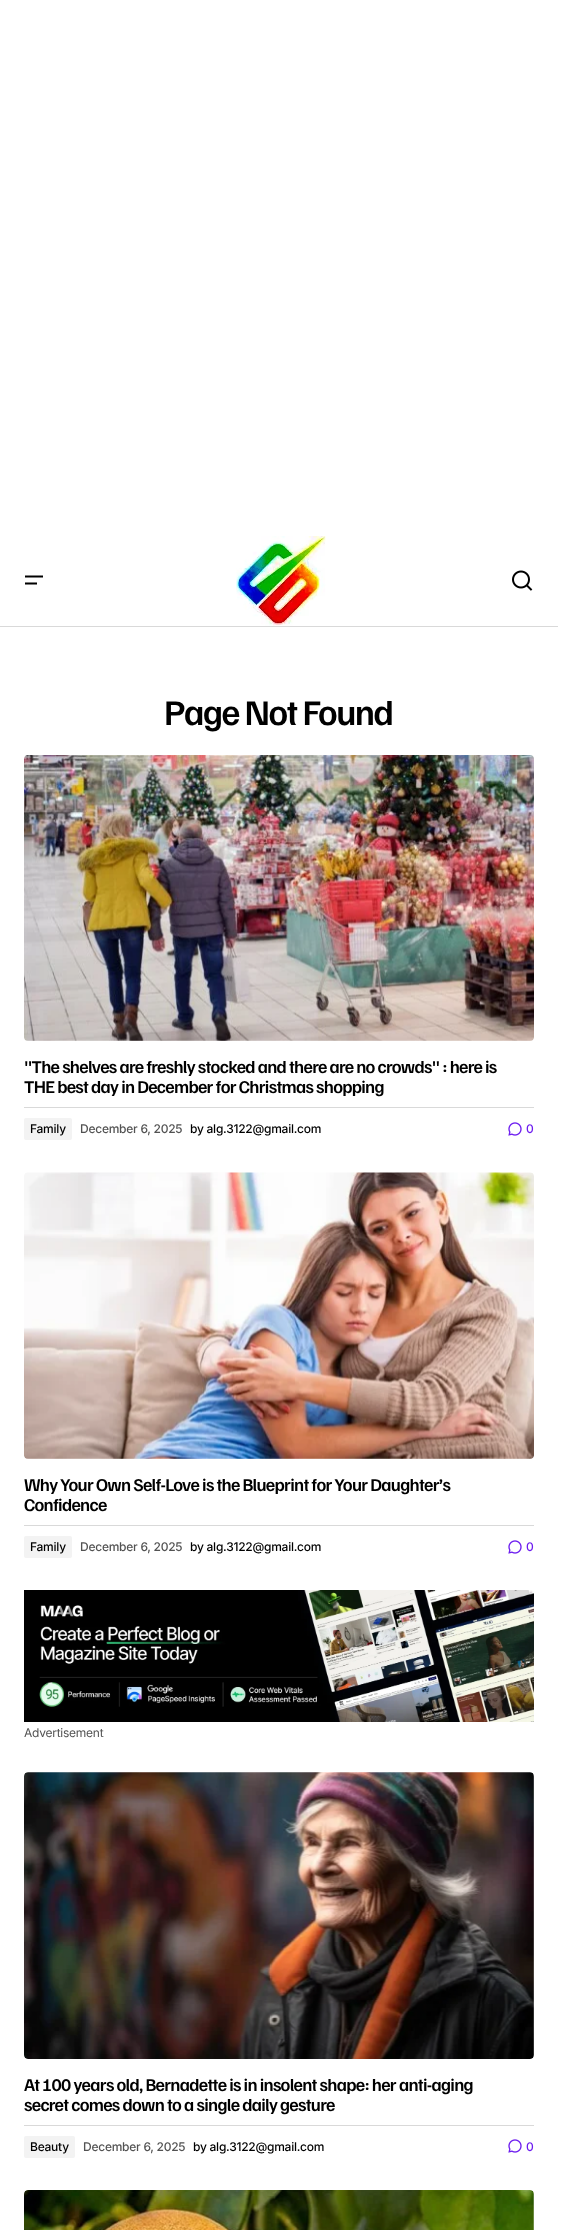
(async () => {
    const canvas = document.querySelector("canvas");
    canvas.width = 573;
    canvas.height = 2230;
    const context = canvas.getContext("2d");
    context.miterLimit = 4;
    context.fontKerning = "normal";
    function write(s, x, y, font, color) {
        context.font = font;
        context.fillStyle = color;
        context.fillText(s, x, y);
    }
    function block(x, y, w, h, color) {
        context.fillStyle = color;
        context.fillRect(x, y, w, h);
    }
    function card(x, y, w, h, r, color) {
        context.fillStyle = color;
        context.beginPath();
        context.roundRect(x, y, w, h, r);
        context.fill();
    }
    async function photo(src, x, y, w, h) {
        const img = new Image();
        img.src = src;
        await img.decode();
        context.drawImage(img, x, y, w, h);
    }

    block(0, 0, 573, 2230, "rgb(255, 255, 255)");
    await photo("media/1.png", 25, 575, 18, 10);
    await photo("media/2.png", 236, 536, 90, 90);
    await photo("media/3.png", 512, 570, 21, 21);
    block(0, 626, 558, 1, "rgb(217, 217, 217)");
    context.letterSpacing = "-1.5px";
    write("Page Not Found", 164, 725, "600 36px Familjen Grotesk", "rgb(0, 0, 0)");
    await photo("media/4.png", 24, 755, 510, 286);
    context.letterSpacing = "-0.72px";
    write("\"The shelves are freshly stocked and there are no crowds\" : here is", 24, 1073, "600 18px Familjen Grotesk", "rgb(0, 0, 0)");
    write("THE best day in December for Christmas shopping", 24, 1093, "600 18px Familjen Grotesk", "rgb(0, 0, 0)");
    block(24, 1107, 510, 1, "rgb(217, 217, 217)");
    card(24, 1118, 48, 22, 2, "rgb(243, 243, 243)");
    context.letterSpacing = "-0.25px";
    write("Family", 30, 1133, "500 12px Inter", "rgb(0, 0, 0)");
    write("December 6, 2025", 80, 1133, "500 12px Inter", "rgb(82, 82, 82)");
    write("by alg.3122@gmail.com", 190, 1133, "500 12px Inter", "rgb(0, 0, 0)");
    await photo("media/5.png", 508, 1122, 14, 14);
    write("0", 526, 1133, "500 12px Inter", "rgb(109, 29, 239)");
    await photo("media/6.png", 24, 1172, 510, 287);
    context.letterSpacing = "-0.72px";
    write("Why Your Own Self-Love is the Blueprint for Your Daughter’s", 24, 1491, "600 18px Familjen Grotesk", "rgb(0, 0, 0)");
    write("Confidence", 24, 1511, "600 18px Familjen Grotesk", "rgb(0, 0, 0)");
    block(24, 1525, 510, 1, "rgb(217, 217, 217)");
    card(24, 1536, 48, 22, 2, "rgb(243, 243, 243)");
    context.letterSpacing = "-0.25px";
    write("Family", 30, 1551, "500 12px Inter", "rgb(0, 0, 0)");
    write("December 6, 2025", 80, 1551, "500 12px Inter", "rgb(82, 82, 82)");
    write("by alg.3122@gmail.com", 190, 1551, "500 12px Inter", "rgb(0, 0, 0)");
    await photo("media/5.png", 508, 1540, 14, 14);
    write("0", 526, 1551, "500 12px Inter", "rgb(109, 29, 239)");
    await photo("media/7.png", 24, 1590, 510, 132);
    write("Advertisement", 24, 1737, "12px Inter", "rgb(82, 82, 82)");
    await photo("media/8.png", 24, 1772, 510, 287);
    context.letterSpacing = "-0.72px";
    write("At 100 years old, Bernadette is in insolent shape: her anti-aging", 24, 2091, "600 18px Familjen Grotesk", "rgb(0, 0, 0)");
    write("secret comes down to a single daily gesture", 24, 2111, "600 18px Familjen Grotesk", "rgb(0, 0, 0)");
    block(24, 2125, 510, 1, "rgb(217, 217, 217)");
    card(24, 2136, 51, 22, 2, "rgb(243, 243, 243)");
    context.letterSpacing = "-0.25px";
    write("Beauty", 30, 2151, "500 12px Inter", "rgb(0, 0, 0)");
    write("December 6, 2025", 83, 2151, "500 12px Inter", "rgb(82, 82, 82)");
    write("by alg.3122@gmail.com", 193, 2151, "500 12px Inter", "rgb(0, 0, 0)");
    await photo("media/5.png", 508, 2139, 14, 14);
    write("0", 526, 2151, "500 12px Inter", "rgb(109, 29, 239)");
    await photo("media/9.png", 24, 2190, 510, 40);
})();
